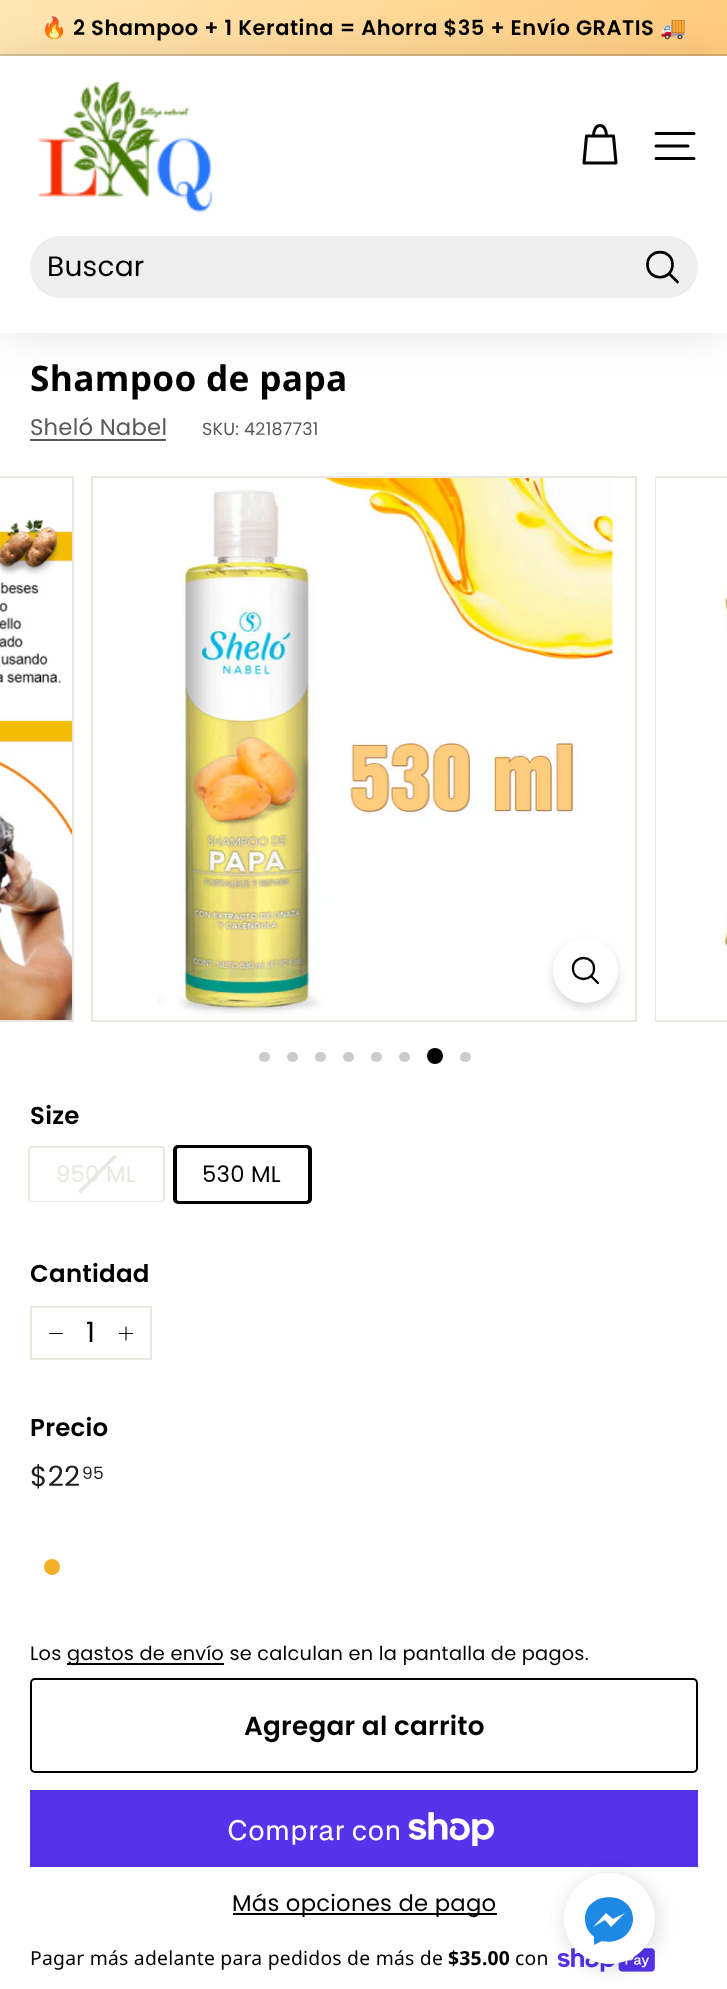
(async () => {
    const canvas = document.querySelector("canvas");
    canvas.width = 727;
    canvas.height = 1989;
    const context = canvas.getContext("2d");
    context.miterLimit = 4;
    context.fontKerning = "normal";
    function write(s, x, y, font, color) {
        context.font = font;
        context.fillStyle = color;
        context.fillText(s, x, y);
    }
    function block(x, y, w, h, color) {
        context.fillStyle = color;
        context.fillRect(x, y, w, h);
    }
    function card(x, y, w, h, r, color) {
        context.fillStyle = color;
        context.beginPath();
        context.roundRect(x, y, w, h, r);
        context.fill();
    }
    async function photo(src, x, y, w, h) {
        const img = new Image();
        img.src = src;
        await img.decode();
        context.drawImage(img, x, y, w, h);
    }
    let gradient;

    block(0, 0, 727, 1989, "rgb(255, 255, 255)");
    gradient = context.createLinearGradient(0, 28, 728, 28);
    gradient.addColorStop(0, "rgb(255, 230, 179)");
    gradient.addColorStop(1, "rgb(255, 204, 128)");
    context.fillStyle = gradient;
    context.fillRect(0, 0, 727, 56);
    context.letterSpacing = "0.53px";
    write("🔥", 41, 35, "bold 21px Noto Color Emoji", "rgb(0, 0, 0)");
    write("2 Shampoo + 1 Keratina = Ahorra $35 + Envío GRATIS", 73, 35, "600 21px Poppins", "rgb(0, 0, 0)");
    write("🚚", 660, 35, "bold 21px Noto Color Emoji", "rgb(0, 0, 0)");
    context.fillStyle = "rgba(0, 0, 0, 0.1)";
    context.filter = "blur(22px)";
    context.beginPath();
    context.rect(0, 56, 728, 180);
    context.fill();
    context.filter = "none";
    block(0, 54, 727, 2, "rgba(0, 0, 0, 0.15)");
    context.fillStyle = "rgba(0, 0, 0, 0.1)";
    context.filter = "blur(22px)";
    context.beginPath();
    context.rect(0, 236, 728, 97);
    context.fill();
    context.filter = "none";
    block(0, 56, 727, 277, "rgb(255, 255, 255)");
    await photo("media/1.png", 38, 80, 175, 133);
    context.beginPath();
    context.moveTo(593.5, 136);
    context.bezierCurveTo(593.5, 122, 606.5, 122, 606.5, 136);
    context.moveTo(586.5, 136);
    context.lineTo(613.5, 136);
    context.lineTo(616, 163);
    context.lineTo(584, 163);
    context.closePath();
    context.strokeStyle = "rgb(0, 0, 0)";
    context.lineWidth = 3;
    context.lineCap = "round";
    context.lineJoin = "round";
    context.stroke();
    context.beginPath();
    context.moveTo(656, 133.5);
    context.lineTo(694, 133.5);
    context.moveTo(656, 146);
    context.lineTo(688, 146);
    context.moveTo(656, 158.5);
    context.lineTo(694, 158.5);
    context.stroke();
    card(30, 236, 668, 62, 31, "rgb(238, 238, 238)");
    context.letterSpacing = "0.25px";
    write("Buscar", 47, 276, "28px Poppins", "rgb(0, 0, 0)");
    context.beginPath();
    context.moveTo(672.5, 264.5);
    context.bezierCurveTo(672.5, 281.5, 647.5, 281.5, 647.5, 264.5);
    context.bezierCurveTo(647.5, 248, 672.5, 248, 672.5, 264.5);
    context.closePath();
    context.moveTo(677.5, 282);
    context.lineTo(669, 273.5);
    context.lineWidth = 2.7;
    context.stroke();
    context.letterSpacing = "0.3px";
    write("Shampoo de papa", 30, 391, "bold 35.25px Open Sans", "rgb(0, 0, 0)");
    context.letterSpacing = "0.23px";
    write("Sheló Nabel", 30, 435, "22.75px Poppins", "rgb(89, 89, 89)");
    block(30, 439, 136, 2, "rgb(89, 89, 89)");
    write("SKU: 42187731", 202, 435, "17.5px Poppins", "rgb(89, 89, 89)");
    context.strokeStyle = "rgb(232, 232, 225)";
    context.lineWidth = 2;
    context.lineJoin = "miter";
    context.strokeRect(-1, 477, 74, 544);
    await photo("media/2.png", 0, 518, 72, 502);
    context.strokeRect(92, 477, 544, 544);
    await photo("media/3.png", 158, 478, 456, 536);
    context.fillStyle = "rgba(0, 0, 0, 0.15)";
    context.filter = "blur(5px)";
    context.beginPath();
    context.roundRect(553, 943, 65, 65, 32.5);
    context.fill();
    context.filter = "none";
    context.fillStyle = "rgb(255, 255, 255)";
    context.beginPath();
    context.arc(585.5, 970.5, 32.5, 0, Math.PI * 2);
    context.fill();
    context.beginPath();
    context.moveTo(594, 968.5);
    context.bezierCurveTo(594, 982.5, 573, 982.5, 573, 968.5);
    context.bezierCurveTo(573, 954.5, 594, 954.5, 594, 968.5);
    context.closePath();
    context.moveTo(598, 983);
    context.lineTo(591, 976);
    context.strokeStyle = "rgb(0, 0, 0)";
    context.lineWidth = 2.3;
    context.lineJoin = "round";
    context.stroke();
    context.strokeStyle = "rgb(232, 232, 225)";
    context.lineWidth = 2;
    context.lineJoin = "miter";
    context.strokeRect(656, 477, 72, 544);
    block(656, 478, 1, 542, "rgb(255, 255, 255)");
    await photo("media/4.png", 722, 588, 5, 364);
    card(259, 1052, 11, 10, 5, "rgb(204, 204, 204)");
    card(287, 1052, 11, 10, 5, "rgb(204, 204, 204)");
    card(315, 1052, 11, 10, 5, "rgb(204, 204, 204)");
    card(343, 1052, 11, 10, 5, "rgb(204, 204, 204)");
    card(371, 1052, 11, 10, 5, "rgb(204, 204, 204)");
    card(399, 1052, 11, 10, 5, "rgb(204, 204, 204)");
    context.fillStyle = "rgb(0, 0, 0)";
    context.beginPath();
    context.arc(435, 1056, 8, 0, Math.PI * 2);
    context.fill();
    card(460, 1052, 11, 10, 5, "rgb(204, 204, 204)");
    write("Size", 30, 1124, "600 24.5px Poppins", "rgb(0, 0, 0)");
    context.beginPath();
    context.roundRect(29, 1147, 135, 54, 3);
    context.stroke();
    card(30, 1148, 133, 53, 2, "rgb(255, 255, 255)");
    context.fillStyle = "rgb(232, 232, 225)";
    context.beginPath();
    context.moveTo(114.5, 1154.5);
    context.lineTo(117, 1157);
    context.lineTo(80.5, 1193.5);
    context.lineTo(78, 1191);
    context.closePath();
    context.fill();
    write("950 ML", 56, 1182, "22.75px Poppins", "rgb(232, 232, 225)");
    context.beginPath();
    context.roundRect(175, 1147, 135, 55, 3);
    context.strokeStyle = "rgb(0, 0, 0)";
    context.lineWidth = 4;
    context.stroke();
    card(177, 1148, 131, 53, 2, "rgb(255, 255, 255)");
    write("530 ML", 202, 1182, "22.75px Poppins", "rgb(0, 0, 0)");
    write("Cantidad", 30, 1282, "600 24.5px Poppins", "rgb(0, 0, 0)");
    context.strokeStyle = "rgb(232, 232, 225)";
    context.lineWidth = 2;
    context.strokeRect(31, 1307, 120, 52);
    context.beginPath();
    context.moveTo(62.5, 1333.5);
    context.lineTo(49.5, 1333.5);
    context.strokeStyle = "rgb(0, 0, 0)";
    context.lineWidth = 1.1;
    context.lineJoin = "round";
    context.stroke();
    context.letterSpacing = "0.25px";
    write("1", 86, 1342, "28px Poppins", "rgb(0, 0, 0)");
    context.beginPath();
    context.moveTo(126, 1327);
    context.lineTo(126, 1340);
    context.moveTo(132.5, 1333.5);
    context.lineTo(119.5, 1333.5);
    context.stroke();
    context.letterSpacing = "0.23px";
    write("Precio", 30, 1436, "600 24.5px Poppins", "rgb(0, 0, 0)");
    write("$22", 30, 1486, "28px Poppins", "rgb(28, 29, 29)");
    write("95", 82, 1479, "17px Poppins", "rgb(28, 29, 29)");
    context.fillStyle = "rgb(244, 175, 41)";
    context.beginPath();
    context.arc(52, 1567, 8, 0, Math.PI * 2);
    context.fill();
    write("Los", 30, 1660, "19.35px Poppins", "rgb(0, 0, 0)");
    block(67, 1663, 157, 2, "rgb(0, 0, 0)");
    write("gastos de envío se calculan en la pantalla de pagos.", 67, 1660, "19.35px Poppins", "rgb(0, 0, 0)");
    context.beginPath();
    context.roundRect(31, 1679, 666, 93, 4);
    context.lineWidth = 2;
    context.lineJoin = "miter";
    context.stroke();
    context.letterSpacing = "0.25px";
    write("Agregar al carrito", 244, 1735, "600 26.25px Poppins", "rgb(0, 0, 0)");
    block(30, 1790, 668, 77, "rgb(84, 51, 235)");
    context.letterSpacing = "0.23px";
    write("Comprar con", 227, 1840, "28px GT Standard", "rgb(255, 255, 255)");
    await photo("media/5.png", 408, 1812, 86, 34);
    block(233, 1913, 264, 2, "rgb(0, 0, 0)");
    write("Más opciones de pago", 232, 1911, "22.75px Poppins", "rgb(0, 0, 0)");
    write("Pagar más adelante para pedidos de más de", 30, 1965, "19.35px Noto Sans", "rgb(0, 0, 0)");
    write("$35.00", 448, 1965, "bold 19.35px Noto Sans", "rgb(0, 0, 0)");
    write("con", 515, 1965, "19.35px Noto Sans", "rgb(0, 0, 0)");
    await photo("media/6.png", 557, 1948, 98, 24);
    context.fillStyle = "rgba(0, 0, 0, 0.05)";
    context.filter = "blur(9px)";
    context.beginPath();
    context.roundRect(564, 1876, 91, 91, 45.5);
    context.fill();
    context.filter = "none";
    context.fillStyle = "rgba(0, 0, 0, 0.07)";
    context.filter = "blur(8px)";
    context.beginPath();
    context.roundRect(564, 1873, 98, 98, 49);
    context.fill();
    context.filter = "none";
    context.fillStyle = "rgb(255, 255, 255)";
    context.beginPath();
    context.arc(609.5, 1918.5, 45.5, 0, Math.PI * 2);
    context.fill();
    context.fillStyle = "rgb(30, 136, 229)";
    context.beginPath();
    context.moveTo(585, 1919);
    context.bezierCurveTo(585, 1890, 633, 1890, 633, 1919);
    context.bezierCurveTo(633, 1925, 630, 1931, 626, 1935);
    context.bezierCurveTo(620, 1941, 610, 1943, 602, 1941);
    context.lineTo(594, 1945);
    context.lineTo(594, 1937);
    context.bezierCurveTo(588, 1932, 585, 1926, 585, 1919);
    context.closePath();
    context.moveTo(605, 1920);
    context.lineTo(611, 1927);
    context.lineTo(625, 1913);
    context.lineTo(613, 1919);
    context.lineTo(606, 1913);
    context.lineTo(593, 1927);
    context.closePath();
    context.fill("evenodd");
})();
